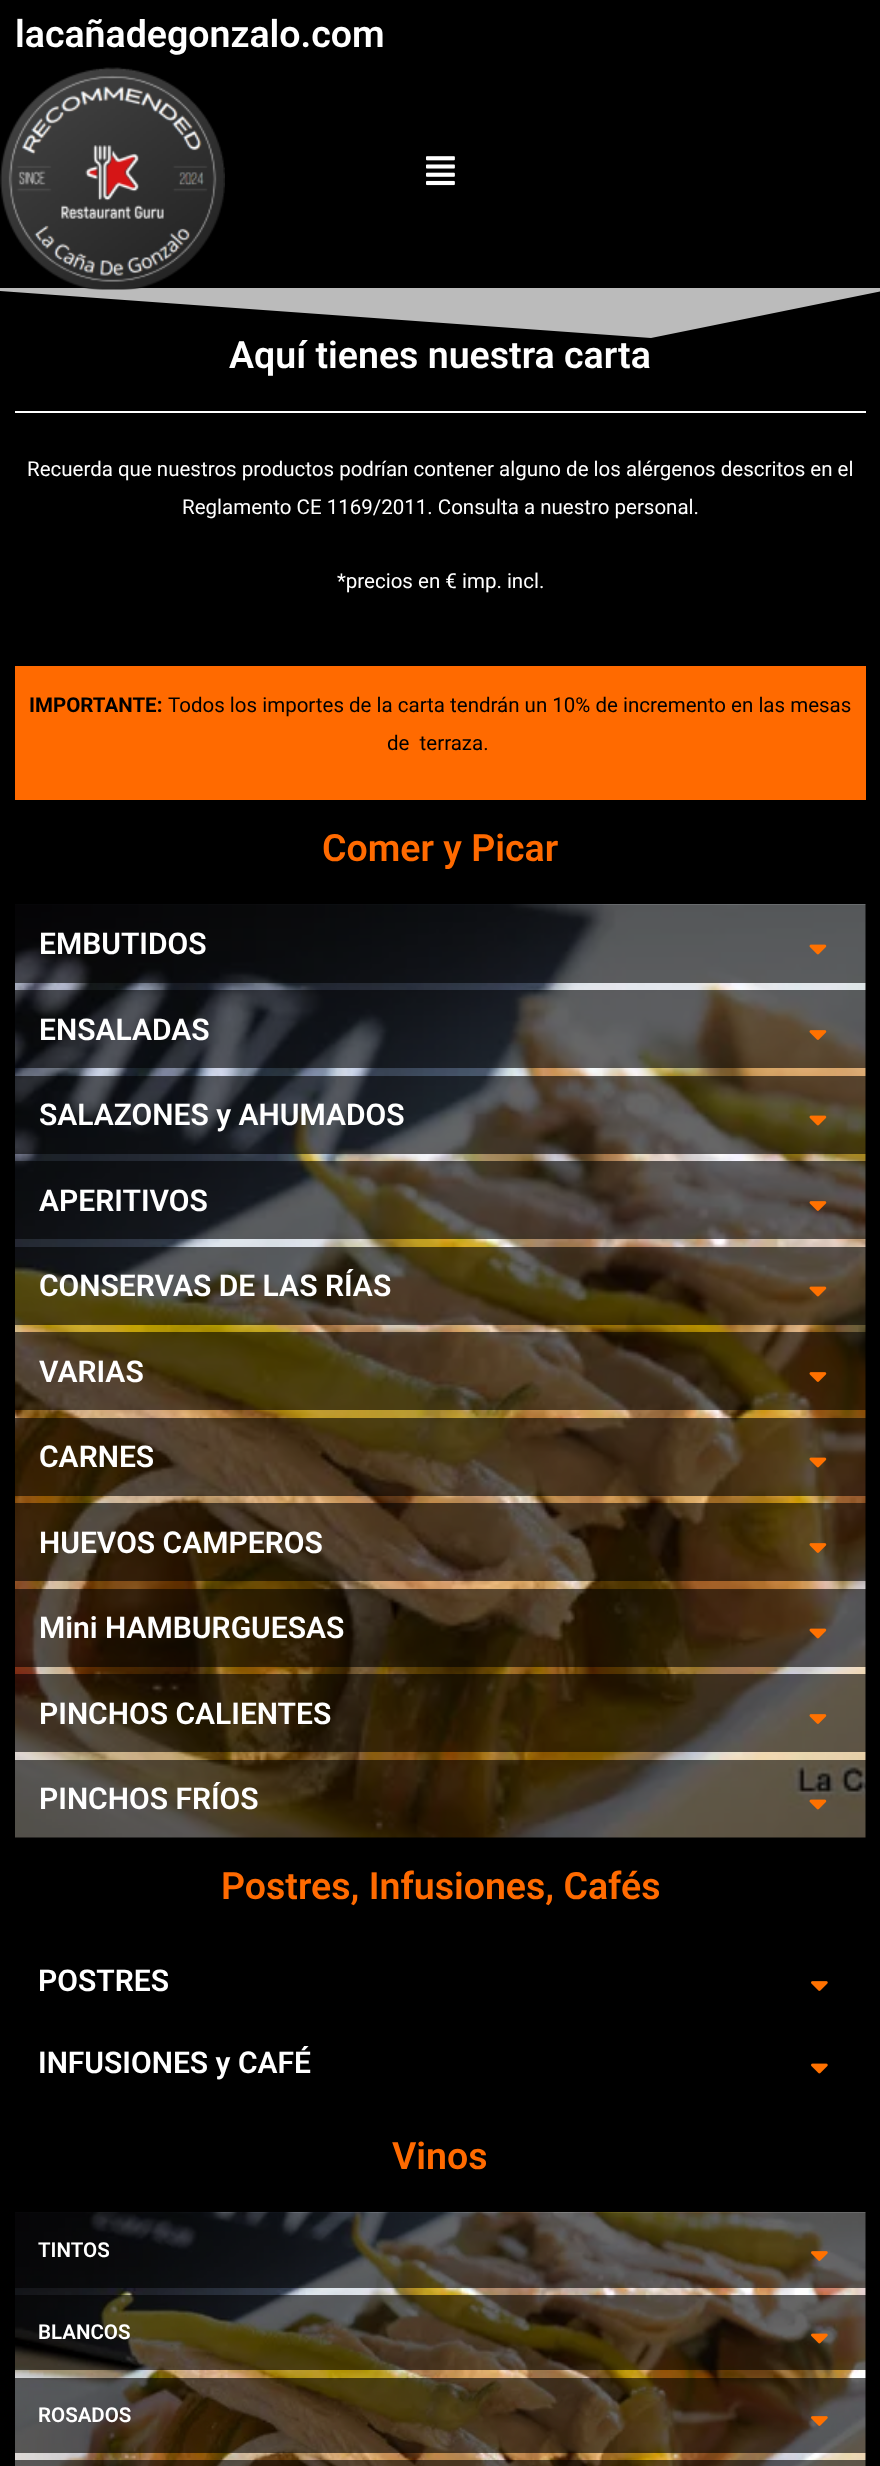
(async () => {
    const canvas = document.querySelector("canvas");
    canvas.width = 880;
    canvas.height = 2466;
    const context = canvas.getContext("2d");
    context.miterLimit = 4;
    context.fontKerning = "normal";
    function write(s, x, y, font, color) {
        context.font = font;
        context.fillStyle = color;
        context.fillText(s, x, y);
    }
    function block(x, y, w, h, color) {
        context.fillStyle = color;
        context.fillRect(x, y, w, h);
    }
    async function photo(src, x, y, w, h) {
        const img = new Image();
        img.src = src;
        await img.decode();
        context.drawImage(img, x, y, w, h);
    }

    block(0, 0, 880, 2466, "rgb(0, 0, 0)");
    write("lacañadegonzalo.com", 15, 47, "600 37.5px Roboto", "rgb(255, 255, 255)");
    context.fillStyle = "rgb(187, 187, 187)";
    context.beginPath();
    context.moveTo(651, 338);
    context.lineTo(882, 291);
    context.lineTo(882, 288);
    context.lineTo(0, 288);
    context.lineTo(0, 291);
    context.closePath();
    context.fill();
    await photo("media/1.png", 0, 67, 225, 223);
    await photo("media/2.png", 426, 156, 29, 30);
    write("Aquí tienes nuestra carta", 229, 368, "600 37.5px Roboto", "rgb(255, 255, 255)");
    block(15, 411, 851, 2, "rgb(255, 255, 255)");
    write("Recuerda que nuestros productos podrían contener alguno de los alérgenos descritos en el", 27, 476, "20.5px Roboto", "rgb(255, 255, 255)");
    write("Reglamento CE 1169/2011. Consulta a nuestro personal.", 182, 514, "20.5px Roboto", "rgb(255, 255, 255)");
    write("*precios en € imp. incl.", 337, 588, "20.5px Roboto", "rgb(255, 255, 255)");
    block(15, 666, 851, 134, "rgb(255, 106, 0)");
    write("IMPORTANTE:", 29, 712, "bold 20.5px Roboto", "rgb(0, 0, 0)");
    write("Todos los importes de la carta tendrán un 10% de incremento en las mesas", 168, 712, "20.5px Roboto", "rgb(0, 0, 0)");
    write("de  terraza.", 387, 750, "20.5px Roboto", "rgb(0, 0, 0)");
    write("Comer y Picar", 322, 861, "600 37.5px Roboto", "rgb(255, 106, 0)");
    await photo("media/3.png", 15, 904, 851, 934);
    block(15, 905, 851, 78, "rgba(0, 0, 0, 0.6)");
    write("EMBUTIDOS", 39, 954, "600 30px Roboto", "rgb(255, 255, 255)");
    await photo("media/4.png", 809, 944, 18, 11);
    block(15, 990, 851, 78, "rgba(0, 0, 0, 0.6)");
    write("ENSALADAS", 39, 1040, "600 30px Roboto", "rgb(255, 255, 255)");
    await photo("media/5.png", 809, 1030, 18, 10);
    block(15, 1076, 851, 78, "rgba(0, 0, 0, 0.6)");
    write("SALAZONES y AHUMADOS", 39, 1125, "600 30px Roboto", "rgb(255, 255, 255)");
    await photo("media/6.png", 809, 1115, 18, 11);
    block(15, 1161, 851, 78, "rgba(0, 0, 0, 0.6)");
    write("APERITIVOS", 39, 1211, "600 30px Roboto", "rgb(255, 255, 255)");
    await photo("media/7.png", 809, 1201, 18, 10);
    block(15, 1247, 851, 78, "rgba(0, 0, 0, 0.6)");
    write("CONSERVAS DE LAS RÍAS", 39, 1296, "600 30px Roboto", "rgb(255, 255, 255)");
    await photo("media/8.png", 809, 1286, 18, 11);
    block(15, 1332, 851, 78, "rgba(0, 0, 0, 0.6)");
    write("VARIAS", 39, 1382, "600 30px Roboto", "rgb(255, 255, 255)");
    await photo("media/9.png", 809, 1372, 18, 10);
    block(15, 1418, 851, 78, "rgba(0, 0, 0, 0.6)");
    write("CARNES", 39, 1467, "600 30px Roboto", "rgb(255, 255, 255)");
    await photo("media/10.png", 809, 1457, 18, 11);
    block(15, 1503, 851, 78, "rgba(0, 0, 0, 0.6)");
    write("HUEVOS CAMPEROS", 39, 1553, "600 30px Roboto", "rgb(255, 255, 255)");
    await photo("media/11.png", 809, 1543, 18, 10);
    block(15, 1589, 851, 78, "rgba(0, 0, 0, 0.6)");
    write("Mini HAMBURGUESAS", 39, 1638, "600 30px Roboto", "rgb(255, 255, 255)");
    await photo("media/12.png", 809, 1628, 18, 11);
    block(15, 1674, 851, 78, "rgba(0, 0, 0, 0.6)");
    write("PINCHOS CALIENTES", 39, 1724, "600 30px Roboto", "rgb(255, 255, 255)");
    await photo("media/13.png", 809, 1714, 18, 10);
    block(15, 1760, 851, 78, "rgba(0, 0, 0, 0.6)");
    write("PINCHOS FRÍOS", 39, 1809, "600 30px Roboto", "rgb(255, 255, 255)");
    await photo("media/14.png", 809, 1799, 18, 11);
    write("Postres, Infusiones, Cafés", 221, 1899, "600 37.5px Roboto", "rgb(255, 106, 0)");
    write("POSTRES", 38, 1991, "600 30px Roboto", "rgb(255, 255, 255)");
    await photo("media/15.png", 811, 1981, 17, 10);
    write("INFUSIONES y CAFÉ", 38, 2073, "600 30px Roboto", "rgb(255, 255, 255)");
    await photo("media/16.png", 811, 2063, 17, 11);
    write("Vinos", 392, 2169, "600 37.5px Roboto", "rgb(255, 106, 0)");
    await photo("media/17.png", 15, 2212, 851, 254);
    block(15, 2213, 851, 75, "rgba(0, 0, 0, 0.6)");
    write("TINTOS", 38, 2257, "600 20.5px Roboto", "rgb(255, 255, 255)");
    await photo("media/18.png", 811, 2251, 17, 10);
    block(15, 2295, 851, 75, "rgba(0, 0, 0, 0.6)");
    write("BLANCOS", 38, 2339, "600 20.5px Roboto", "rgb(255, 255, 255)");
    await photo("media/19.png", 811, 2333, 17, 11);
    block(15, 2378, 851, 75, "rgba(0, 0, 0, 0.6)");
    write("ROSADOS", 38, 2422, "600 20.5px Roboto", "rgb(255, 255, 255)");
    await photo("media/20.png", 811, 2416, 17, 10);
    block(15, 2460, 851, 6, "rgba(0, 0, 0, 0.6)");
})();
